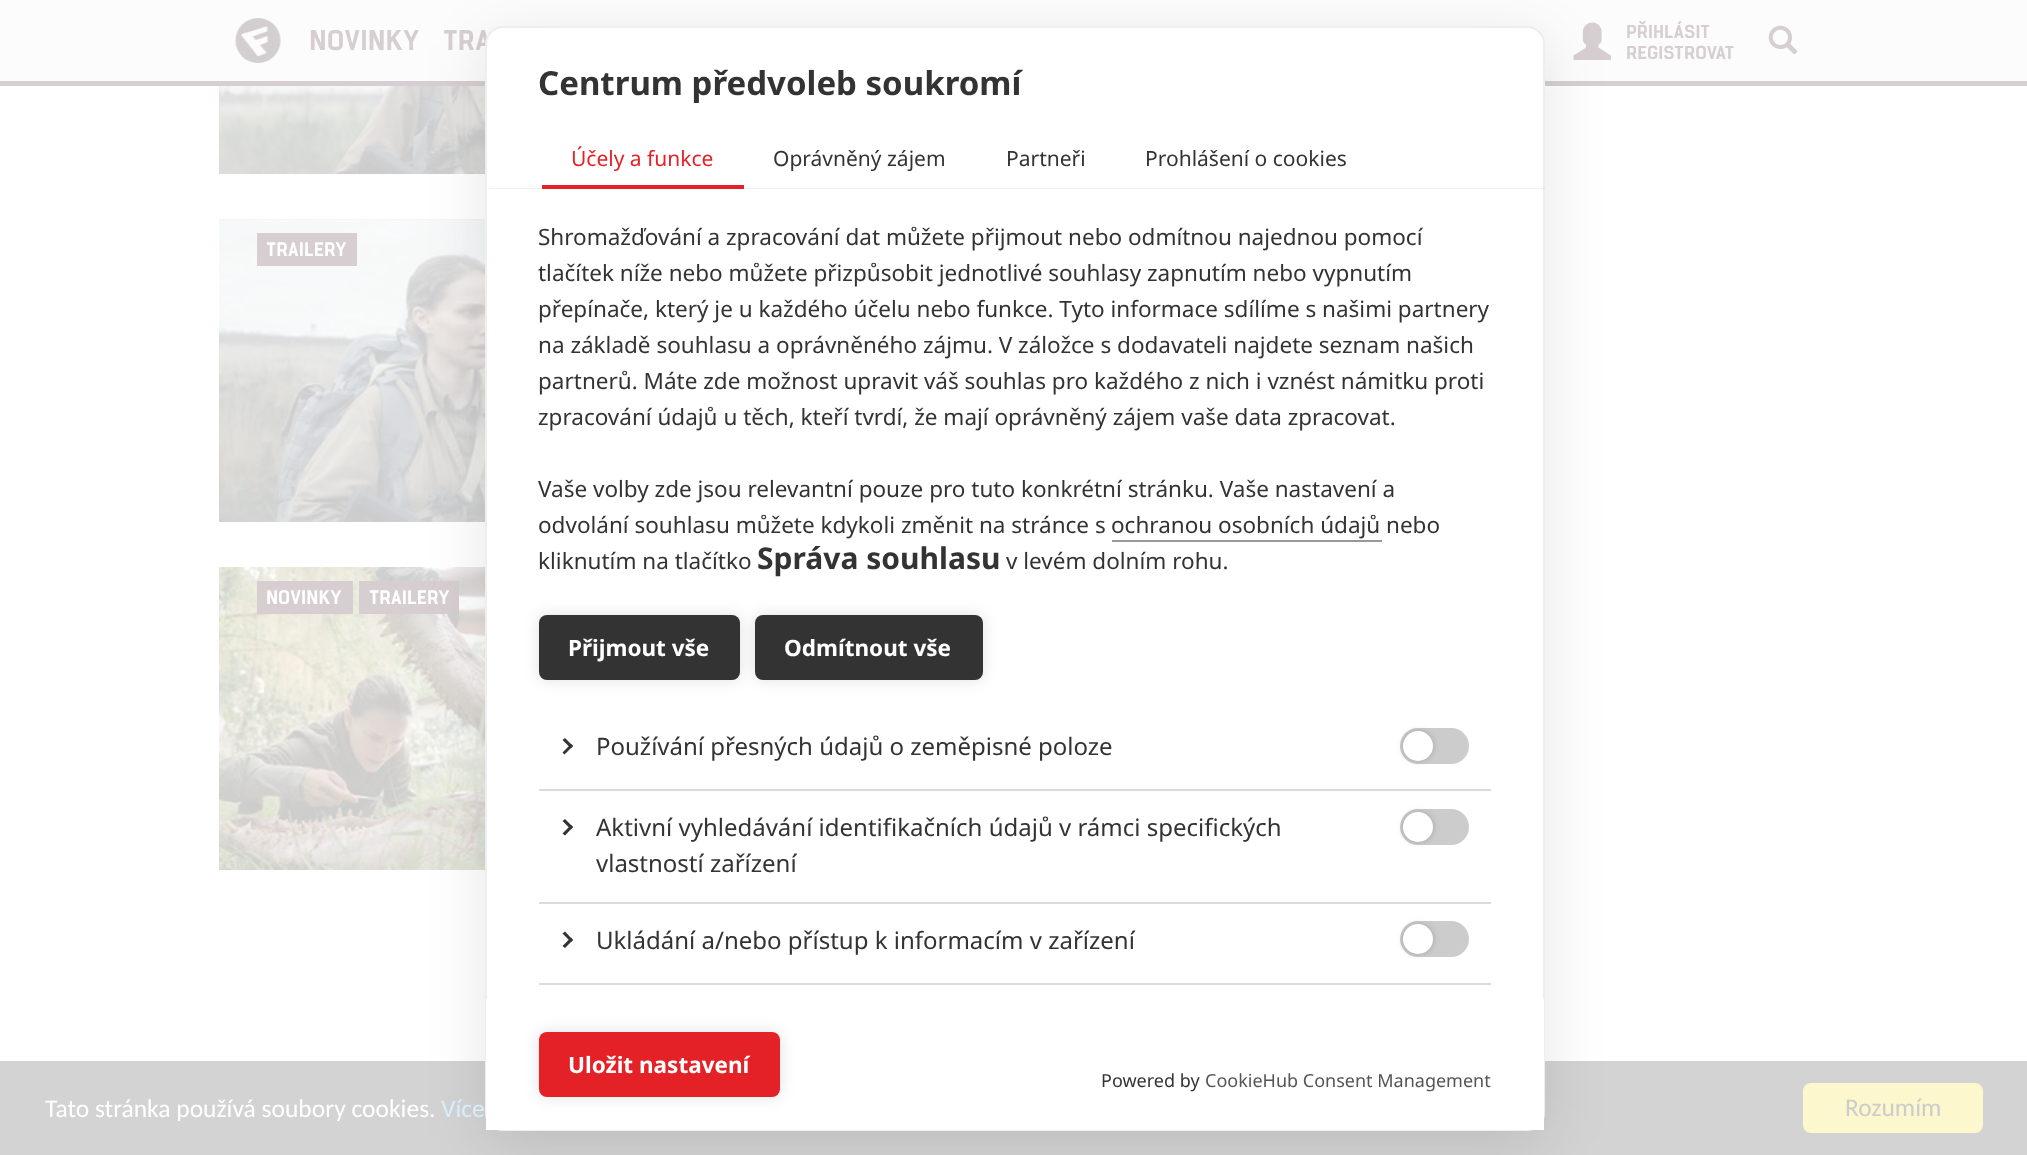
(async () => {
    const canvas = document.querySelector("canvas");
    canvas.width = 2027;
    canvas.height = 1155;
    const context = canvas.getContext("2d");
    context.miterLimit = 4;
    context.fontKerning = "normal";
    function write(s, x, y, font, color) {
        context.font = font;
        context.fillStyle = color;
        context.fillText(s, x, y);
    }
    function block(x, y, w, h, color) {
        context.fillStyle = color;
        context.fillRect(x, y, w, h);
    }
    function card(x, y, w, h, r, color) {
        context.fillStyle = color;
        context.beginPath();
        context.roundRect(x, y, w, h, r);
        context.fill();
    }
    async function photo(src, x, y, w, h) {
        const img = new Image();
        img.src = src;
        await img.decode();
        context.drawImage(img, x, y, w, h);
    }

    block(0, 0, 2027, 1155, "rgb(255, 255, 255)");
    block(0, 0, 2027, 81, "rgb(252, 252, 252)");
    block(0, 81, 2027, 5, "rgb(214, 206, 209)");
    await photo("media/1.png", 235, 18, 46, 45);
    write("NOVINKY", 309, 50, "800 28.5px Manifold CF", "rgb(214, 206, 209)");
    write("TRA", 443, 50, "800 28.5px Manifold CF", "rgb(214, 206, 209)");
    await photo("media/2.png", 1573, 22, 38, 38);
    write("PŘIHLÁSIT", 1626, 38, "800 18.75px Manifold CF", "rgb(214, 206, 209)");
    write("REGISTROVAT", 1626, 59, "800 18.75px Manifold CF", "rgb(214, 206, 209)");
    await photo("media/3.png", 1768, 25, 30, 30);
    await photo("media/4.png", 219, 86, 266, 88);
    await photo("media/5.png", 219, 219, 266, 303);
    block(257, 233, 100, 33, "rgb(214, 206, 209)");
    write("TRAILERY", 266, 256, "800 19.5px Manifold CF", "rgb(255, 255, 255)");
    await photo("media/6.png", 219, 567, 266, 303);
    block(257, 581, 96, 33, "rgb(214, 206, 209)");
    write("NOVINKY", 266, 604, "800 19.5px Manifold CF", "rgb(255, 255, 255)");
    block(359, 581, 100, 33, "rgb(214, 206, 209)");
    write("TRAILERY", 369, 604, "800 19.5px Manifold CF", "rgb(255, 255, 255)");
    block(0, 1061, 2027, 94, "rgb(211, 211, 211)");
    context.fillStyle = "rgba(0, 0, 0, 0.1)";
    context.filter = "blur(30px)";
    context.beginPath();
    context.roundRect(485, 41, 1060, 1105, 18);
    context.fill();
    context.filter = "none";
    context.fillStyle = "rgb(255, 255, 255)";
    context.beginPath();
    context.roundRect(486, 27, 1058, 1103, 17);
    context.fill();
    context.strokeStyle = "rgb(238, 238, 238)";
    context.lineWidth = 2;
    context.stroke();
    write("Centrum předvoleb soukromí", 538, 95, "bold 33px Noto Sans", "rgb(51, 51, 51)");
    block(489, 188, 1056, 1, "rgba(112, 112, 112, 0.1)");
    block(542, 185, 202, 4, "rgb(228, 33, 39)");
    write("Účely a funkce", 571, 166, "21px Noto Sans", "rgb(228, 33, 39)");
    write("Oprávněný zájem", 773, 166, "21px Noto Sans", "rgb(51, 51, 51)");
    write("Partneři", 1006, 166, "21px Noto Sans", "rgb(51, 51, 51)");
    write("Prohlášení o cookies", 1145, 166, "21px Noto Sans", "rgb(51, 51, 51)");
    write("Shromažďování a zpracování dat můžete přijmout nebo odmítnou najednou pomocí", 538, 245, "22.5px Noto Sans", "rgb(51, 51, 51)");
    write("tlačítek níže nebo můžete přizpůsobit jednotlivé souhlasy zapnutím nebo vypnutím", 538, 281, "22.5px Noto Sans", "rgb(51, 51, 51)");
    write("přepínače, který je u každého účelu nebo funkce. Tyto informace sdílíme s našimi partnery", 538, 317, "22.5px Noto Sans", "rgb(51, 51, 51)");
    write("na základě souhlasu a oprávněného zájmu. V záložce s dodavateli najdete seznam našich", 538, 353, "22.5px Noto Sans", "rgb(51, 51, 51)");
    write("partnerů. Máte zde možnost upravit váš souhlas pro každého z nich i vznést námitku proti", 538, 389, "22.5px Noto Sans", "rgb(51, 51, 51)");
    write("zpracování údajů u těch, kteří tvrdí, že mají oprávněný zájem vaše data zpracovat.", 538, 425, "22.5px Noto Sans", "rgb(51, 51, 51)");
    write("Vaše volby zde jsou relevantní pouze pro tuto konkrétní stránku. Vaše nastavení a", 538, 497, "22.5px Noto Sans", "rgb(51, 51, 51)");
    write("odvolání souhlasu můžete kdykoli změnit na stránce s", 538, 533, "22.5px Noto Sans", "rgb(51, 51, 51)");
    write("ochranou osobních údajů", 1111, 533, "22.5px Noto Sans", "rgb(51, 51, 51)");
    block(1112, 540, 270, 2, "rgb(153, 153, 153)");
    write("nebo", 1386, 533, "22.5px Noto Sans", "rgb(51, 51, 51)");
    write("kliknutím na tlačítko", 538, 569, "22.5px Noto Sans", "rgb(51, 51, 51)");
    write("Správa souhlasu", 757, 569, "bold 30px Noto Sans", "rgb(51, 51, 51)");
    write("v levém dolním rohu.", 1006, 569, "22.5px Noto Sans", "rgb(51, 51, 51)");
    context.fillStyle = "rgba(0, 0, 0, 0.12)";
    context.filter = "blur(7.5px)";
    context.beginPath();
    context.roundRect(539, 615, 201, 65, 8);
    context.fill();
    context.filter = "none";
    card(539, 615, 201, 65, 8, "rgb(51, 51, 51)");
    write("Přijmout vše", 568, 656, "bold 22.5px Noto Sans", "rgb(255, 255, 255)");
    context.fillStyle = "rgba(0, 0, 0, 0.12)";
    context.filter = "blur(7.5px)";
    context.beginPath();
    context.roundRect(755, 615, 228, 65, 8);
    context.fill();
    context.filter = "none";
    card(755, 615, 228, 65, 8, "rgb(51, 51, 51)");
    write("Odmítnout vše", 784, 656, "bold 22.5px Noto Sans", "rgb(255, 255, 255)");
    block(539, 789, 952, 2, "rgb(217, 219, 220)");
    context.fillStyle = "rgb(51, 51, 51)";
    context.beginPath();
    context.moveTo(562.5, 740);
    context.lineTo(565, 738);
    context.lineTo(573, 746);
    context.lineTo(571, 748.5);
    context.closePath();
    context.fill();
    context.beginPath();
    context.moveTo(562.5, 752.5);
    context.lineTo(571, 744);
    context.lineTo(573, 746);
    context.lineTo(564.5, 754.5);
    context.closePath();
    context.fill();
    write("Používání přesných údajů o zeměpisné poloze", 596, 755, "24px Noto Sans", "rgb(51, 51, 51)");
    card(1400, 728, 69, 36, 18, "rgb(204, 204, 204)");
    context.fillStyle = "rgba(0, 0, 0, 0.2)";
    context.filter = "blur(3px)";
    context.beginPath();
    context.roundRect(1403, 731, 30, 30, 15);
    context.fill();
    context.filter = "none";
    context.fillStyle = "rgb(255, 255, 255)";
    context.beginPath();
    context.arc(1418, 746, 15, 0, Math.PI * 2);
    context.fill();
    block(539, 902, 952, 2, "rgb(217, 219, 220)");
    context.fillStyle = "rgb(51, 51, 51)";
    context.beginPath();
    context.moveTo(562.5, 821);
    context.lineTo(565, 819);
    context.lineTo(573, 827);
    context.lineTo(571, 829.5);
    context.closePath();
    context.fill();
    context.beginPath();
    context.moveTo(562.5, 833.5);
    context.lineTo(571, 825);
    context.lineTo(573, 827);
    context.lineTo(565, 835.5);
    context.closePath();
    context.fill();
    write("Aktivní vyhledávání identifikačních údajů v rámci specifických", 596, 836, "24px Noto Sans", "rgb(51, 51, 51)");
    write("vlastností zařízení", 596, 872, "24px Noto Sans", "rgb(51, 51, 51)");
    card(1400, 809, 69, 36, 18, "rgb(204, 204, 204)");
    context.fillStyle = "rgba(0, 0, 0, 0.2)";
    context.filter = "blur(3px)";
    context.beginPath();
    context.roundRect(1403, 812, 30, 30, 15);
    context.fill();
    context.filter = "none";
    context.fillStyle = "rgb(255, 255, 255)";
    context.beginPath();
    context.arc(1418, 827, 15, 0, Math.PI * 2);
    context.fill();
    block(539, 983, 952, 2, "rgb(217, 219, 220)");
    context.fillStyle = "rgb(51, 51, 51)";
    context.beginPath();
    context.moveTo(562.5, 933.5);
    context.lineTo(565, 931.5);
    context.lineTo(573, 940);
    context.lineTo(571, 942);
    context.closePath();
    context.fill();
    context.beginPath();
    context.moveTo(562.5, 946);
    context.lineTo(571, 937.5);
    context.lineTo(573, 940);
    context.lineTo(565, 948);
    context.closePath();
    context.fill();
    write("Ukládání a/nebo přístup k informacím v zařízení", 596, 949, "24px Noto Sans", "rgb(51, 51, 51)");
    card(1400, 921, 69, 36, 18, "rgb(204, 204, 204)");
    context.fillStyle = "rgba(0, 0, 0, 0.2)";
    context.filter = "blur(3px)";
    context.beginPath();
    context.roundRect(1403, 924, 30, 30, 15);
    context.fill();
    context.filter = "none";
    context.fillStyle = "rgb(255, 255, 255)";
    context.beginPath();
    context.arc(1418, 939, 15, 0, Math.PI * 2);
    context.fill();
    block(486, 999, 1058, 131, "rgb(255, 255, 255)");
    context.fillStyle = "rgba(0, 0, 0, 0.12)";
    context.filter = "blur(7.5px)";
    context.beginPath();
    context.roundRect(539, 1032, 241, 65, 8);
    context.fill();
    context.filter = "none";
    card(539, 1032, 241, 65, 8, "rgb(228, 33, 39)");
    write("Uložit nastavení", 568, 1073, "bold 22.5px Noto Sans", "rgb(255, 255, 255)");
    write("Powered by", 1101, 1087, "18px Noto Sans", "rgb(51, 51, 51)");
    write("CookieHub Consent Management", 1205, 1087, "18px Noto Sans", "rgb(85, 85, 85)");
    write("Tato stránka používá soubory cookies.", 45, 1117, "25.5px Carlito", "rgb(255, 255, 255)");
    write("Více", 441, 1117, "25.5px Carlito", "rgb(214, 238, 252)");
    card(1803, 1083, 180, 50, 8, "rgb(252, 247, 204)");
    write("Rozumím", 1845, 1116, "25.5px Carlito", "rgb(204, 204, 204)");
})();
